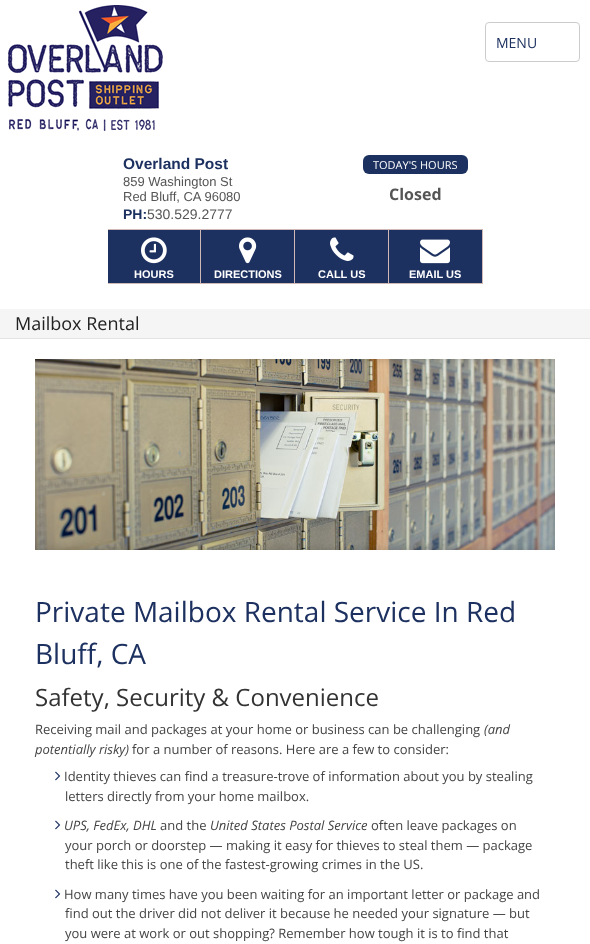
(async () => {
    const canvas = document.querySelector("canvas");
    canvas.width = 590;
    canvas.height = 944;
    const context = canvas.getContext("2d");
    context.miterLimit = 4;
    context.fontKerning = "normal";
    function write(s, x, y, font, color) {
        context.font = font;
        context.fillStyle = color;
        context.fillText(s, x, y);
    }
    function block(x, y, w, h, color) {
        context.fillStyle = color;
        context.fillRect(x, y, w, h);
    }
    function card(x, y, w, h, r, color) {
        context.fillStyle = color;
        context.beginPath();
        context.roundRect(x, y, w, h, r);
        context.fill();
    }
    async function photo(src, x, y, w, h) {
        const img = new Image();
        img.src = src;
        await img.decode();
        context.drawImage(img, x, y, w, h);
    }

    block(0, 0, 590, 944, "rgb(255, 255, 255)");
    await photo("media/1.png", 8, 5, 155, 127);
    context.beginPath();
    context.roundRect(485.5, 22.5, 94, 39, 3.5);
    context.strokeStyle = "rgb(204, 204, 204)";
    context.stroke();
    write("MENU", 496, 48, "14px Open Sans", "rgb(29, 49, 96)");
    write("Overland Post", 123, 169, "bold 15.5px Liberation Sans", "rgb(29, 49, 96)");
    write("859 Washington St", 123, 186, "13px Liberation Sans", "rgb(85, 85, 85)");
    write("Red Bluff, CA 96080", 123, 201, "13px Liberation Sans", "rgb(85, 85, 85)");
    write("PH:", 123, 219, "bold 14px Liberation Sans", "rgb(29, 49, 96)");
    write("530.529.2777", 147, 219, "14px Liberation Sans", "rgb(85, 85, 85)");
    card(363, 155, 105, 19, 6, "rgb(29, 49, 96)");
    write("TODAY'S HOURS", 373, 169, "11px Open Sans", "rgb(255, 255, 255)");
    write("Closed", 389, 200, "bold 16px Open Sans", "rgb(85, 85, 85)");
    block(108, 230, 92, 53, "rgb(29, 49, 96)");
    block(108, 229, 375, 1, "rgb(208, 184, 180)");
    block(200, 229, 1, 55, "rgb(208, 184, 180)");
    block(108, 283, 93, 1, "rgb(208, 184, 180)");
    await photo("media/2.png", 141, 237, 26, 27);
    write("HOURS", 134, 278, "bold 11px Liberation Sans", "rgb(255, 255, 255)");
    block(201, 230, 93, 53, "rgb(29, 49, 96)");
    block(294, 229, 1, 55, "rgb(208, 184, 180)");
    block(201, 283, 94, 1, "rgb(208, 184, 180)");
    await photo("media/3.png", 239, 237, 18, 27);
    write("DIRECTIONS", 214, 278, "bold 11px Liberation Sans", "rgb(255, 255, 255)");
    block(295, 230, 93, 53, "rgb(29, 49, 96)");
    block(388, 229, 1, 55, "rgb(208, 184, 180)");
    block(295, 283, 94, 1, "rgb(208, 184, 180)");
    await photo("media/4.png", 330, 237, 24, 24);
    write("CALL US", 318, 278, "bold 11px Liberation Sans", "rgb(255, 255, 255)");
    block(389, 230, 93, 53, "rgb(29, 49, 96)");
    block(482, 229, 1, 55, "rgb(208, 184, 180)");
    block(389, 283, 94, 1, "rgb(208, 184, 180)");
    await photo("media/5.png", 420, 239, 30, 25);
    write("EMAIL US", 409, 278, "bold 11px Liberation Sans", "rgb(255, 255, 255)");
    block(0, 309, 590, 29, "rgb(245, 245, 245)");
    block(0, 338, 590, 1, "rgb(227, 227, 227)");
    write("Mailbox Rental", 15, 330, "18px Open Sans", "rgb(34, 34, 34)");
    await photo("media/6.png", 35, 359, 520, 191);
    write("Private Mailbox Rental Service In Red", 35, 622, "28px Open Sans", "rgb(29, 49, 96)");
    write("Bluff, CA", 35, 664, "28px Open Sans", "rgb(29, 49, 96)");
    write("Safety, Security & Convenience", 35, 706, "24px Open Sans", "rgb(51, 51, 51)");
    write("Receiving mail and packages at your home or business can be challenging", 35, 734, "13px Open Sans", "rgb(68, 68, 68)");
    write("(and", 484, 734, "italic 13px Open Sans", "rgb(68, 68, 68)");
    write("potentially risky)", 35, 754, "italic 13px Open Sans", "rgb(68, 68, 68)");
    write("for a number of reasons. Here are a few to consider:", 132, 754, "13px Open Sans", "rgb(68, 68, 68)");
    await photo("media/7.png", 55, 771, 6, 10);
    write("Identity thieves can find a treasure-trove of information about you by stealing", 64, 781, "13px Open Sans", "rgb(68, 68, 68)");
    write("letters directly from your home mailbox.", 65, 801, "13px Open Sans", "rgb(68, 68, 68)");
    await photo("media/7.png", 55, 820, 6, 10);
    write("UPS, FedEx, DHL", 64, 830, "italic 13px Open Sans", "rgb(68, 68, 68)");
    write("and the", 160, 830, "13px Open Sans", "rgb(68, 68, 68)");
    write("United States Postal Service", 210, 830, "italic 13px Open Sans", "rgb(68, 68, 68)");
    write("often leave packages on", 371, 830, "13px Open Sans", "rgb(68, 68, 68)");
    write("your porch or doorstep — making it easy for thieves to steal them — package", 65, 850, "13px Open Sans", "rgb(68, 68, 68)");
    write("theft like this is one of the fastest-growing crimes in the US.", 65, 869, "13px Open Sans", "rgb(68, 68, 68)");
    await photo("media/7.png", 55, 889, 6, 10);
    write("How many times have you been waiting for an important letter or package and", 64, 899, "13px Open Sans", "rgb(68, 68, 68)");
    write("find out the driver did not deliver it because he needed your signature — but", 65, 918, "13px Open Sans", "rgb(68, 68, 68)");
    write("you were at work or out shopping? Remember how tough it is to find that", 65, 938, "13px Open Sans", "rgb(68, 68, 68)");
})();
